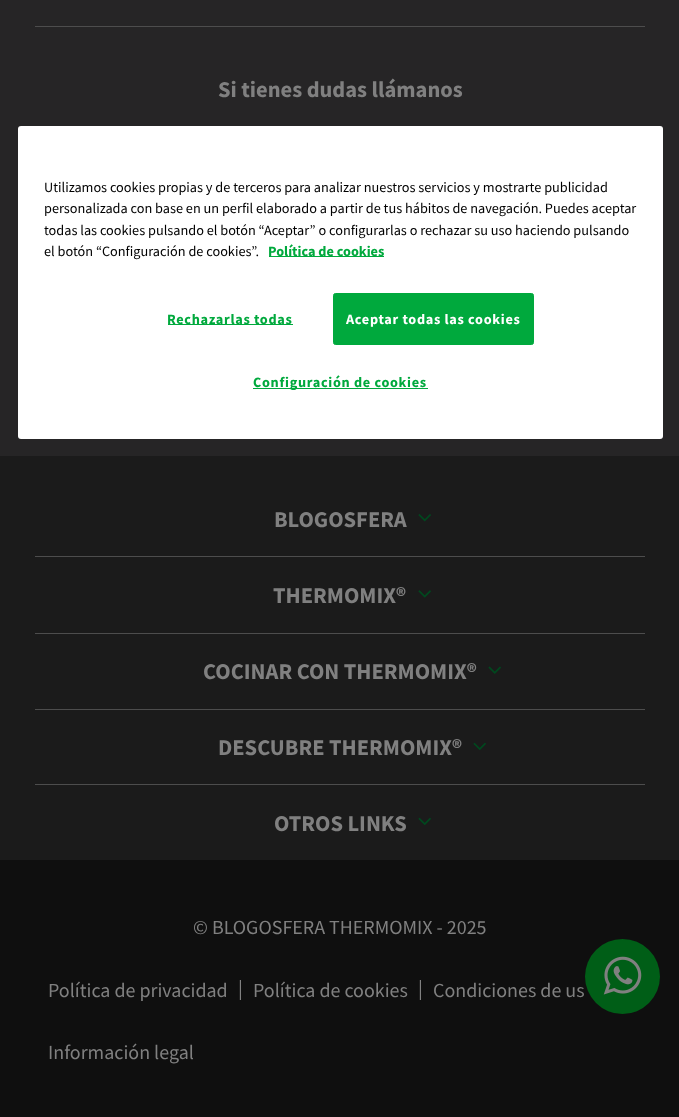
(async () => {
    const canvas = document.querySelector("canvas");
    canvas.width = 679;
    canvas.height = 1117;
    const context = canvas.getContext("2d");
    context.miterLimit = 4;
    context.fontKerning = "normal";
    function write(s, x, y, font, color) {
        context.font = font;
        context.fillStyle = color;
        context.fillText(s, x, y);
    }
    function block(x, y, w, h, color) {
        context.fillStyle = color;
        context.fillRect(x, y, w, h);
    }
    function card(x, y, w, h, r, color) {
        context.fillStyle = color;
        context.beginPath();
        context.roundRect(x, y, w, h, r);
        context.fill();
    }
    async function photo(src, x, y, w, h) {
        const img = new Image();
        img.src = src;
        await img.decode();
        context.drawImage(img, x, y, w, h);
    }

    block(0, 0, 679, 1117, "rgb(38, 37, 38)");
    block(35, 26, 610, 1, "rgb(77, 77, 77)");
    write("Si tienes dudas llámanos", 218, 97, "bold 22.5px Source Sans Pro", "rgb(128, 128, 128)");
    block(0, 456, 679, 404, "rgb(27, 27, 27)");
    block(35, 556, 610, 1, "rgb(77, 77, 77)");
    write("BLOGOSFERA", 274, 527, "bold 22.5px Source Sans Pro", "rgb(128, 128, 128)");
    await photo("media/1.png", 418, 514, 13, 8);
    block(35, 633, 610, 1, "rgb(77, 77, 77)");
    write("THERMOMIX®", 273, 603, "bold 22.5px Source Sans Pro", "rgb(128, 128, 128)");
    await photo("media/2.png", 418, 590, 13, 8);
    block(35, 709, 610, 1, "rgb(77, 77, 77)");
    write("COCINAR CON THERMOMIX®", 203, 679, "bold 22.5px Source Sans Pro", "rgb(128, 128, 128)");
    await photo("media/3.png", 488, 666, 13, 8);
    block(35, 784, 610, 1, "rgb(77, 77, 77)");
    write("DESCUBRE THERMOMIX®", 218, 755, "bold 22.5px Source Sans Pro", "rgb(128, 128, 128)");
    await photo("media/4.png", 473, 742, 13, 8);
    write("OTROS LINKS", 274, 831, "bold 22.5px Source Sans Pro", "rgb(128, 128, 128)");
    await photo("media/4.png", 418, 817, 13, 8);
    block(0, 860, 679, 257, "rgb(15, 15, 15)");
    write("© BLOGOSFERA THERMOMIX - 2025", 193, 934, "20px Source Sans Pro", "rgb(128, 128, 128)");
    write("Política de privacidad", 48, 997, "20px Source Sans Pro", "rgb(128, 128, 128)");
    write("|", 238, 995, "20px Source Sans Pro", "rgb(128, 128, 128)");
    write("Política de cookies", 253, 997, "20px Source Sans Pro", "rgb(128, 128, 128)");
    write("|", 418, 995, "20px Source Sans Pro", "rgb(128, 128, 128)");
    write("Condiciones de us", 433, 997, "20px Source Sans Pro", "rgb(128, 128, 128)");
    write("Información legal", 48, 1059, "20px Source Sans Pro", "rgb(128, 128, 128)");
    card(18, 126, 645, 313, 3, "rgb(255, 255, 255)");
    write("Utilizamos cookies propias y de terceros para analizar nuestros servicios y mostrarte publicidad", 44, 192, "14.25px Source Sans Pro", "rgb(0, 0, 0)");
    write("personalizada con base en un perfil elaborado a partir de tus hábitos de navegación. Puedes aceptar", 44, 213, "14.25px Source Sans Pro", "rgb(0, 0, 0)");
    write("todas las cookies pulsando el botón “Aceptar” o configurarlas o rechazar su uso haciendo pulsando", 44, 235, "14.25px Source Sans Pro", "rgb(0, 0, 0)");
    write("el botón “Configuración de cookies”.", 44, 256, "14.25px Source Sans Pro", "rgb(0, 0, 0)");
    block(269, 256, 115, 1, "rgb(0, 169, 61)");
    write("Política de cookies", 268, 256, "bold 14.25px Source Sans Pro", "rgb(0, 169, 61)");
    block(168, 324, 125, 1, "rgb(0, 169, 61)");
    context.letterSpacing = "0.7px";
    write("Rechazarlas todas", 167, 324, "bold 14.25px Source Sans Pro", "rgb(0, 169, 61)");
    context.beginPath();
    context.roundRect(333.5, 293.5, 200, 51, 2);
    context.fill();
    context.strokeStyle = "rgb(0, 169, 61)";
    context.stroke();
    write("Aceptar todas las cookies", 346, 324, "bold 14.25px Source Sans Pro", "rgb(255, 255, 255)");
    block(253, 388, 175, 1, "rgb(0, 169, 61)");
    write("Configuración de cookies", 253, 387, "bold 14.25px Source Sans Pro", "rgb(0, 169, 61)");
    context.fillStyle = "rgb(0, 94, 23)";
    context.beginPath();
    context.arc(622.5, 976.5, 37.5, 0, Math.PI * 2);
    context.fill();
    await photo("media/5.png", 603, 956, 39, 39);
})();
